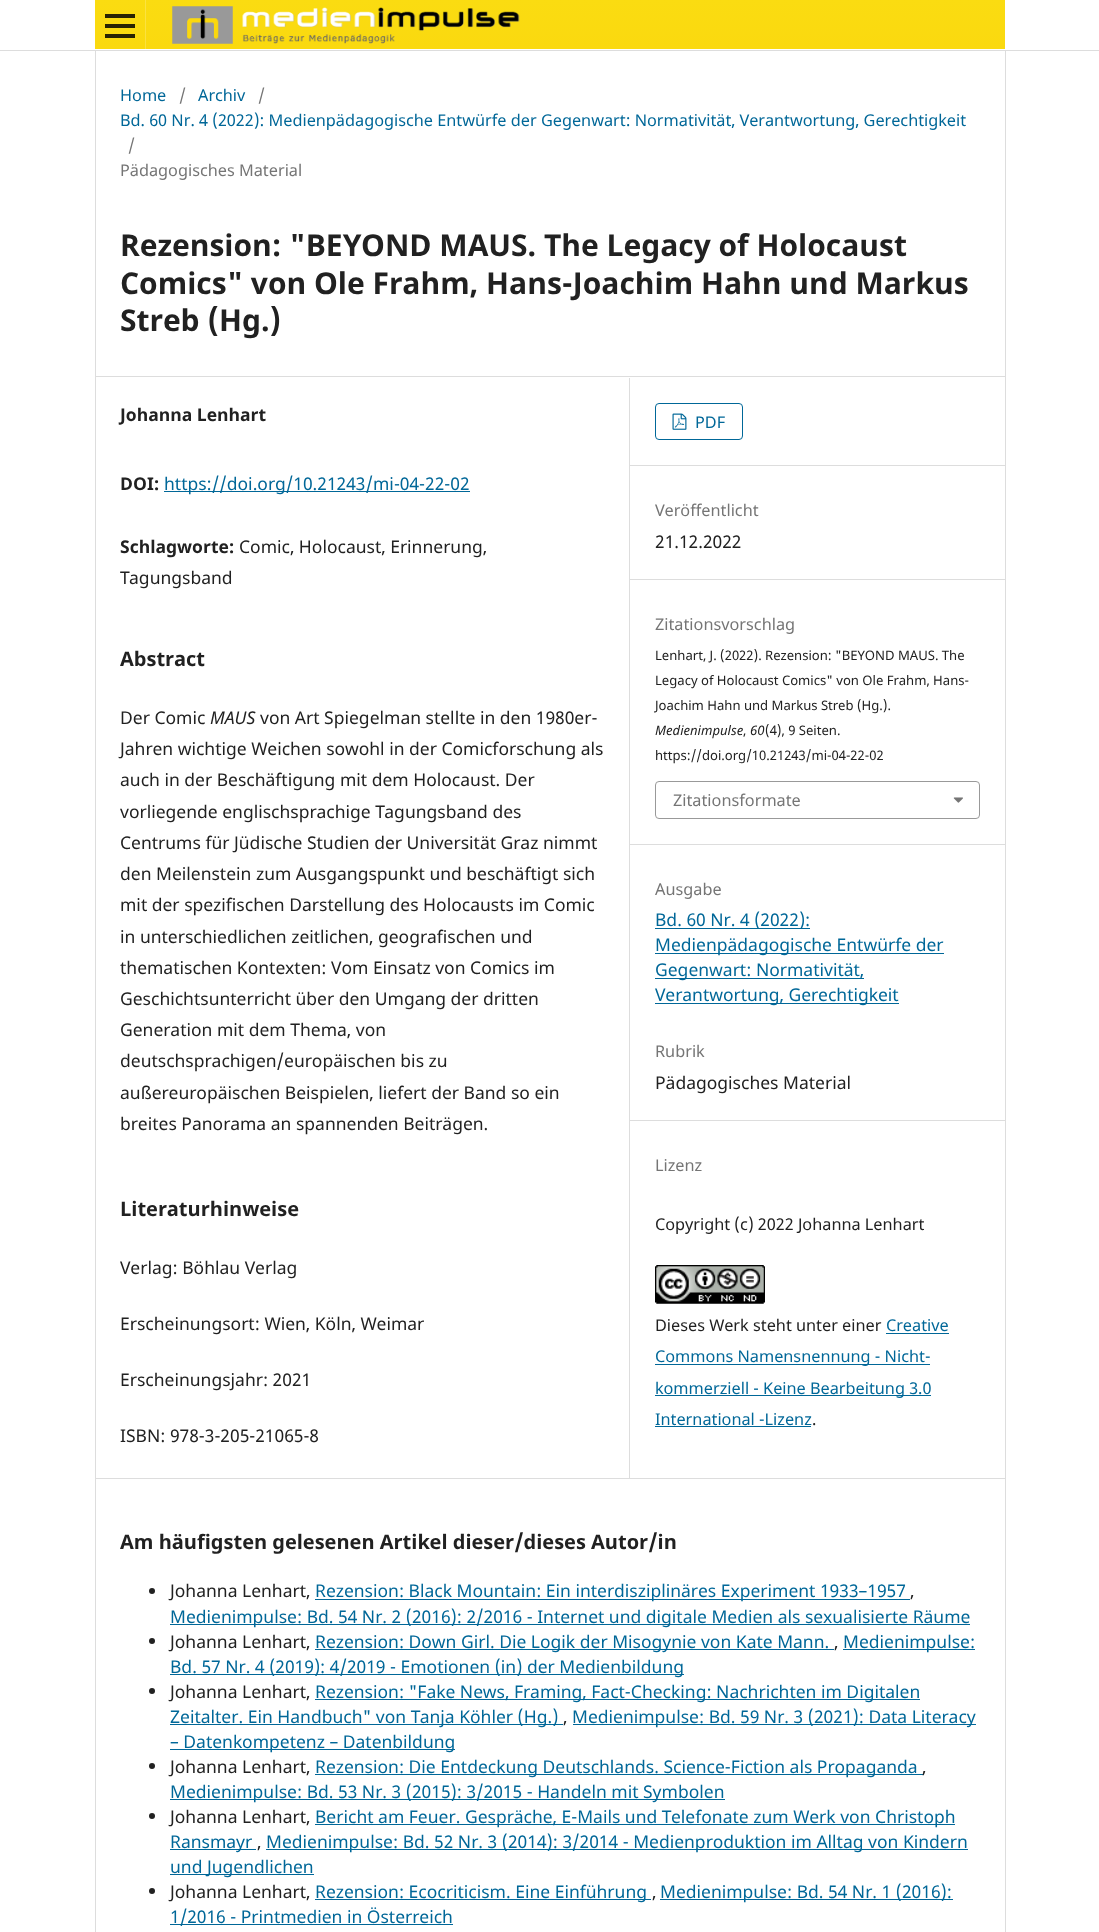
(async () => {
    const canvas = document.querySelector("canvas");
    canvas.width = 1099;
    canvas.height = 1932;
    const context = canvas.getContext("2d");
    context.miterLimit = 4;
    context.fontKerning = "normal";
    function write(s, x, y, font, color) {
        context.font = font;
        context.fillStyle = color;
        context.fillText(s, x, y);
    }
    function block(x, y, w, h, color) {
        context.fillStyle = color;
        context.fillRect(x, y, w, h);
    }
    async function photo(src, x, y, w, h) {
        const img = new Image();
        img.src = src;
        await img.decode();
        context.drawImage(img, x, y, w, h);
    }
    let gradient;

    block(0, 0, 1099, 1932, "rgb(255, 255, 255)");
    block(0, 50, 1099, 1, "rgb(221, 221, 221)");
    gradient = context.createLinearGradient(550, 0, 550, 49);
    gradient.addColorStop(0, "rgb(250, 220, 17)");
    gradient.addColorStop(1, "rgb(250, 217, 15)");
    context.fillStyle = gradient;
    context.fillRect(95, 0, 910, 49);
    gradient = context.createLinearGradient(550, 0, 550, 49);
    gradient.addColorStop(0, "rgb(251, 227, 65)");
    gradient.addColorStop(1, "rgb(251, 225, 63)");
    context.fillStyle = gradient;
    context.fillRect(145, 0, 1, 49);
    block(105, 34, 30, 4, "rgb(40, 35, 3)");
    block(105, 14, 30, 4, "rgb(40, 35, 3)");
    block(105, 24, 30, 4, "rgb(40, 35, 3)");
    await photo("media/1.png", 172, 6, 348, 38);
    block(95, 376, 910, 1, "rgb(221, 221, 221)");
    block(95, 1478, 910, 1, "rgb(221, 221, 221)");
    block(95, 51, 1, 1881, "rgb(221, 221, 221)");
    write("Home", 120, 101, "16.27px Noto Sans", "rgb(0, 103, 152)");
    write("/", 179, 101, "16.27px Noto Sans", "rgb(117, 117, 117)");
    write("Archiv", 198, 101, "16.27px Noto Sans", "rgb(0, 103, 152)");
    write("/", 258, 101, "16.27px Noto Sans", "rgb(117, 117, 117)");
    write("Bd. 60 Nr. 4 (2022): Medienpädagogische Entwürfe der Gegenwart: Normativität, Verantwortung, Gerechtigkeit", 120, 126, "16.27px Noto Sans", "rgb(0, 103, 152)");
    write("/", 128, 151, "16.27px Noto Sans", "rgb(117, 117, 117)");
    write("Pädagogisches Material", 120, 176, "16.27px Noto Sans", "rgb(117, 117, 117)");
    write("Rezension: \"BEYOND MAUS. The Legacy of Holocaust", 120, 256, "bold 30px Noto Sans", "rgb(33, 33, 33)");
    write("Comics\" von Ole Frahm, Hans-Joachim Hahn und Markus", 120, 294, "bold 30px Noto Sans", "rgb(33, 33, 33)");
    write("Streb (Hg.)", 120, 331, "bold 30px Noto Sans", "rgb(33, 33, 33)");
    block(629, 378, 1, 1100, "rgb(221, 221, 221)");
    write("Johanna Lenhart", 120, 421, "bold 17.5px Noto Sans", "rgb(33, 33, 33)");
    write("DOI:", 120, 490, "bold 17.5px Noto Sans", "rgb(33, 33, 33)");
    block(164, 491, 306, 1, "rgb(0, 103, 152)");
    write("https://doi.org/10.21243/mi-04-22-02", 164, 490, "17.5px Noto Sans", "rgb(0, 103, 152)");
    write("Schlagworte:", 120, 553, "bold 17.5px Noto Sans", "rgb(33, 33, 33)");
    write("Comic, Holocaust, Erinnerung,", 239, 553, "17.5px Noto Sans", "rgb(33, 33, 33)");
    write("Tagungsband", 120, 584, "17.5px Noto Sans", "rgb(33, 33, 33)");
    write("Abstract", 120, 666, "bold 20px Noto Sans", "rgb(33, 33, 33)");
    write("Der Comic", 120, 724, "17.5px Noto Sans", "rgb(33, 33, 33)");
    write("MAUS", 210, 724, "italic 17.5px Noto Sans", "rgb(33, 33, 33)");
    write("von Art Spiegelman stellte in den 1980er-", 260, 724, "17.5px Noto Sans", "rgb(33, 33, 33)");
    write("Jahren wichtige Weichen sowohl in der Comicforschung als", 120, 755, "17.5px Noto Sans", "rgb(33, 33, 33)");
    write("auch in der Beschäftigung mit dem Holocaust. Der", 120, 786, "17.5px Noto Sans", "rgb(33, 33, 33)");
    write("vorliegende englischsprachige Tagungsband des", 120, 818, "17.5px Noto Sans", "rgb(33, 33, 33)");
    write("Centrums für Jüdische Studien der Universität Graz nimmt", 120, 849, "17.5px Noto Sans", "rgb(33, 33, 33)");
    write("den Meilenstein zum Ausgangspunkt und beschäftigt sich", 120, 880, "17.5px Noto Sans", "rgb(33, 33, 33)");
    write("mit der spezifischen Darstellung des Holocausts im Comic", 120, 911, "17.5px Noto Sans", "rgb(33, 33, 33)");
    write("in unterschiedlichen zeitlichen, geografischen und", 120, 943, "17.5px Noto Sans", "rgb(33, 33, 33)");
    write("thematischen Kontexten: Vom Einsatz von Comics im", 120, 974, "17.5px Noto Sans", "rgb(33, 33, 33)");
    write("Geschichtsunterricht über den Umgang der dritten", 120, 1005, "17.5px Noto Sans", "rgb(33, 33, 33)");
    write("Generation mit dem Thema, von", 120, 1036, "17.5px Noto Sans", "rgb(33, 33, 33)");
    write("deutschsprachigen/europäischen bis zu", 120, 1067, "17.5px Noto Sans", "rgb(33, 33, 33)");
    write("außereuropäischen Beispielen, liefert der Band so ein", 120, 1099, "17.5px Noto Sans", "rgb(33, 33, 33)");
    write("breites Panorama an spannenden Beiträgen.", 120, 1130, "17.5px Noto Sans", "rgb(33, 33, 33)");
    write("Literaturhinweise", 120, 1216, "bold 20px Noto Sans", "rgb(33, 33, 33)");
    write("Verlag: Böhlau Verlag", 120, 1274, "17.5px Noto Sans", "rgb(33, 33, 33)");
    write("Erscheinungsort: Wien, Köln, Weimar", 120, 1330, "17.5px Noto Sans", "rgb(33, 33, 33)");
    write("Erscheinungsjahr: 2021", 120, 1386, "17.5px Noto Sans", "rgb(33, 33, 33)");
    write("ISBN: 978-3-205-21065-8", 120, 1442, "17.5px Noto Sans", "rgb(33, 33, 33)");
    block(630, 465, 375, 1, "rgb(221, 221, 221)");
    context.beginPath();
    context.roundRect(655.5, 403.5, 87, 36, 3.5);
    context.strokeStyle = "rgb(0, 103, 152)";
    context.stroke();
    await photo("media/2.png", 672, 413, 15, 17);
    write("PDF", 695, 428, "16.27px Noto Sans", "rgb(0, 103, 152)");
    block(630, 579, 375, 1, "rgb(221, 221, 221)");
    write("Veröffentlicht", 655, 516, "16.27px Noto Sans", "rgb(117, 117, 117)");
    write("21.12.2022", 655, 548, "17.5px Noto Sans", "rgb(33, 33, 33)");
    block(630, 844, 375, 1, "rgb(221, 221, 221)");
    write("Zitationsvorschlag", 655, 630, "16.27px Noto Sans", "rgb(117, 117, 117)");
    write("Lenhart, J. (2022). Rezension: \"BEYOND MAUS. The", 655, 660, "13.1px Noto Sans", "rgb(33, 33, 33)");
    write("Legacy of Holocaust Comics\" von Ole Frahm, Hans-", 655, 685, "13.1px Noto Sans", "rgb(33, 33, 33)");
    write("Joachim Hahn und Markus Streb (Hg.).", 655, 710, "13.1px Noto Sans", "rgb(33, 33, 33)");
    write("Medienimpulse", 655, 735, "italic 13.1px Noto Sans", "rgb(33, 33, 33)");
    write(",", 743, 735, "13.1px Noto Sans", "rgb(33, 33, 33)");
    write("60", 750, 735, "italic 13.1px Noto Sans", "rgb(33, 33, 33)");
    write("(4), 9 Seiten.", 765, 735, "13.1px Noto Sans", "rgb(33, 33, 33)");
    write("https://doi.org/10.21243/mi-04-22-02", 655, 760, "13.1px Noto Sans", "rgb(33, 33, 33)");
    context.beginPath();
    context.roundRect(655.5, 781.5, 324, 37, 3.5);
    context.strokeStyle = "rgb(153, 153, 153)";
    context.stroke();
    write("Zitationsformate", 673, 806, "16.27px Noto Sans", "rgb(117, 117, 117)");
    await photo("media/3.png", 953, 797, 10, 6);
    block(630, 1120, 375, 1, "rgb(221, 221, 221)");
    write("Ausgabe", 655, 895, "16.27px Noto Sans", "rgb(117, 117, 117)");
    block(655, 928, 155, 1, "rgb(0, 103, 152)");
    write("Bd. 60 Nr. 4 (2022):", 655, 926, "17.5px Noto Sans", "rgb(0, 103, 152)");
    block(655, 953, 289, 1, "rgb(0, 103, 152)");
    write("Medienpädagogische Entwürfe der", 655, 951, "17.5px Noto Sans", "rgb(0, 103, 152)");
    block(655, 978, 209, 1, "rgb(0, 103, 152)");
    write("Gegenwart: Normativität,", 655, 976, "17.5px Noto Sans", "rgb(0, 103, 152)");
    block(655, 1003, 244, 1, "rgb(0, 103, 152)");
    write("Verantwortung, Gerechtigkeit", 655, 1001, "17.5px Noto Sans", "rgb(0, 103, 152)");
    write("Rubrik", 655, 1057, "16.27px Noto Sans", "rgb(117, 117, 117)");
    write("Pädagogisches Material", 655, 1089, "17.5px Noto Sans", "rgb(33, 33, 33)");
    write("Lizenz", 655, 1171, "16.27px Noto Sans", "rgb(117, 117, 117)");
    write("Copyright (c) 2022 Johanna Lenhart", 655, 1230, "16.27px Noto Sans", "rgb(33, 33, 33)");
    await photo("media/4.png", 655, 1265, 110, 39);
    write("Dieses Werk steht unter einer", 655, 1331, "16.27px Noto Sans", "rgb(33, 33, 33)");
    write("Creative", 886, 1331, "16.27px Noto Sans", "rgb(0, 103, 152)");
    block(886, 1333, 63, 1, "rgb(0, 103, 152)");
    block(655, 1364, 275, 1, "rgb(0, 103, 152)");
    write("Commons Namensnennung - Nicht-", 655, 1362, "16.27px Noto Sans", "rgb(0, 103, 152)");
    block(655, 1395, 276, 1, "rgb(0, 103, 152)");
    write("kommerziell - Keine Bearbeitung 3.0", 655, 1394, "16.27px Noto Sans", "rgb(0, 103, 152)");
    write("International -Lizenz", 655, 1425, "16.27px Noto Sans", "rgb(0, 103, 152)");
    block(655, 1426, 156, 1, "rgb(0, 103, 152)");
    write(".", 812, 1425, "16.27px Noto Sans", "rgb(33, 33, 33)");
    write("Am häufigsten gelesenen Artikel dieser/dieses Autor/in", 120, 1549, "bold 20px Noto Sans", "rgb(33, 33, 33)");
    context.beginPath();
    context.arc(152, 1591, 3, 0, Math.PI * 2);
    context.fill();
    write("Johanna Lenhart,", 170, 1597, "17.5px Noto Sans", "rgb(33, 33, 33)");
    block(315, 1599, 595, 1, "rgb(0, 103, 152)");
    write("Rezension: Black Mountain: Ein interdisziplinäres Experiment 1933–1957", 315, 1597, "17.5px Noto Sans", "rgb(0, 103, 152)");
    write(",", 910, 1597, "17.5px Noto Sans", "rgb(33, 33, 33)");
    block(170, 1624, 800, 1, "rgb(0, 103, 152)");
    write("Medienimpulse: Bd. 54 Nr. 2 (2016): 2/2016 - Internet und digitale Medien als sexualisierte Räume", 170, 1623, "17.5px Noto Sans", "rgb(0, 103, 152)");
    context.fillStyle = "rgb(33, 33, 33)";
    context.beginPath();
    context.arc(152, 1641, 3, 0, Math.PI * 2);
    context.fill();
    write("Johanna Lenhart,", 170, 1648, "17.5px Noto Sans", "rgb(33, 33, 33)");
    block(315, 1649, 519, 1, "rgb(0, 103, 152)");
    write("Rezension: Down Girl. Die Logik der Misogynie von Kate Mann.", 315, 1648, "17.5px Noto Sans", "rgb(0, 103, 152)");
    block(843, 1649, 132, 1, "rgb(0, 103, 152)");
    write("Medienimpulse:", 843, 1648, "17.5px Noto Sans", "rgb(0, 103, 152)");
    write(",", 834, 1648, "17.5px Noto Sans", "rgb(33, 33, 33)");
    block(170, 1674, 514, 1, "rgb(0, 103, 152)");
    write("Bd. 57 Nr. 4 (2019): 4/2019 - Emotionen (in) der Medienbildung", 170, 1673, "17.5px Noto Sans", "rgb(0, 103, 152)");
    context.fillStyle = "rgb(33, 33, 33)";
    context.beginPath();
    context.arc(152, 1691, 3, 0, Math.PI * 2);
    context.fill();
    write("Johanna Lenhart,", 170, 1698, "17.5px Noto Sans", "rgb(33, 33, 33)");
    block(315, 1699, 605, 1, "rgb(0, 103, 152)");
    write("Rezension: \"Fake News, Framing, Fact-Checking: Nachrichten im Digitalen", 315, 1698, "17.5px Noto Sans", "rgb(0, 103, 152)");
    block(170, 1724, 393, 1, "rgb(0, 103, 152)");
    write("Zeitalter. Ein Handbuch\" von Tanja Köhler (Hg.)", 170, 1723, "17.5px Noto Sans", "rgb(0, 103, 152)");
    write(",", 563, 1723, "17.5px Noto Sans", "rgb(33, 33, 33)");
    block(573, 1724, 403, 1, "rgb(0, 103, 152)");
    write("Medienimpulse: Bd. 59 Nr. 3 (2021): Data Literacy", 572, 1723, "17.5px Noto Sans", "rgb(0, 103, 152)");
    block(170, 1749, 285, 1, "rgb(0, 103, 152)");
    write("– Datenkompetenz – Datenbildung", 170, 1748, "17.5px Noto Sans", "rgb(0, 103, 152)");
    context.fillStyle = "rgb(33, 33, 33)";
    context.beginPath();
    context.arc(152, 1766, 3, 0, Math.PI * 2);
    context.fill();
    write("Johanna Lenhart,", 170, 1773, "17.5px Noto Sans", "rgb(33, 33, 33)");
    block(315, 1774, 608, 1, "rgb(0, 103, 152)");
    write("Rezension: Die Entdeckung Deutschlands. Science-Fiction als Propaganda", 315, 1773, "17.5px Noto Sans", "rgb(0, 103, 152)");
    write(",", 922, 1773, "17.5px Noto Sans", "rgb(33, 33, 33)");
    block(170, 1799, 555, 1, "rgb(0, 103, 152)");
    write("Medienimpulse: Bd. 53 Nr. 3 (2015): 3/2015 - Handeln mit Symbolen", 170, 1798, "17.5px Noto Sans", "rgb(0, 103, 152)");
    context.fillStyle = "rgb(33, 33, 33)";
    context.beginPath();
    context.arc(152, 1816, 3, 0, Math.PI * 2);
    context.fill();
    write("Johanna Lenhart,", 170, 1823, "17.5px Noto Sans", "rgb(33, 33, 33)");
    block(315, 1824, 640, 1, "rgb(0, 103, 152)");
    write("Bericht am Feuer. Gespräche, E-Mails und Telefonate zum Werk von Christoph", 315, 1823, "17.5px Noto Sans", "rgb(0, 103, 152)");
    block(170, 1849, 86, 1, "rgb(0, 103, 152)");
    write("Ransmayr", 170, 1848, "17.5px Noto Sans", "rgb(0, 103, 152)");
    write(",", 257, 1848, "17.5px Noto Sans", "rgb(33, 33, 33)");
    block(266, 1849, 702, 1, "rgb(0, 103, 152)");
    write("Medienimpulse: Bd. 52 Nr. 3 (2014): 3/2014 - Medienproduktion im Alltag von Kindern", 266, 1848, "17.5px Noto Sans", "rgb(0, 103, 152)");
    block(170, 1874, 144, 1, "rgb(0, 103, 152)");
    write("und Jugendlichen", 170, 1873, "17.5px Noto Sans", "rgb(0, 103, 152)");
    context.fillStyle = "rgb(33, 33, 33)";
    context.beginPath();
    context.arc(152, 1891, 3, 0, Math.PI * 2);
    context.fill();
    write("Johanna Lenhart,", 170, 1898, "17.5px Noto Sans", "rgb(33, 33, 33)");
    block(315, 1899, 336, 1, "rgb(0, 103, 152)");
    write("Rezension: Ecocriticism. Eine Einführung", 315, 1898, "17.5px Noto Sans", "rgb(0, 103, 152)");
    block(660, 1899, 293, 1, "rgb(0, 103, 152)");
    write("Medienimpulse: Bd. 54 Nr. 1 (2016):", 660, 1898, "17.5px Noto Sans", "rgb(0, 103, 152)");
    write(",", 652, 1898, "17.5px Noto Sans", "rgb(33, 33, 33)");
    block(170, 1924, 283, 1, "rgb(0, 103, 152)");
    write("1/2016 - Printmedien in Österreich", 170, 1923, "17.5px Noto Sans", "rgb(0, 103, 152)");
    block(1005, 51, 1, 1881, "rgb(221, 221, 221)");
})();
